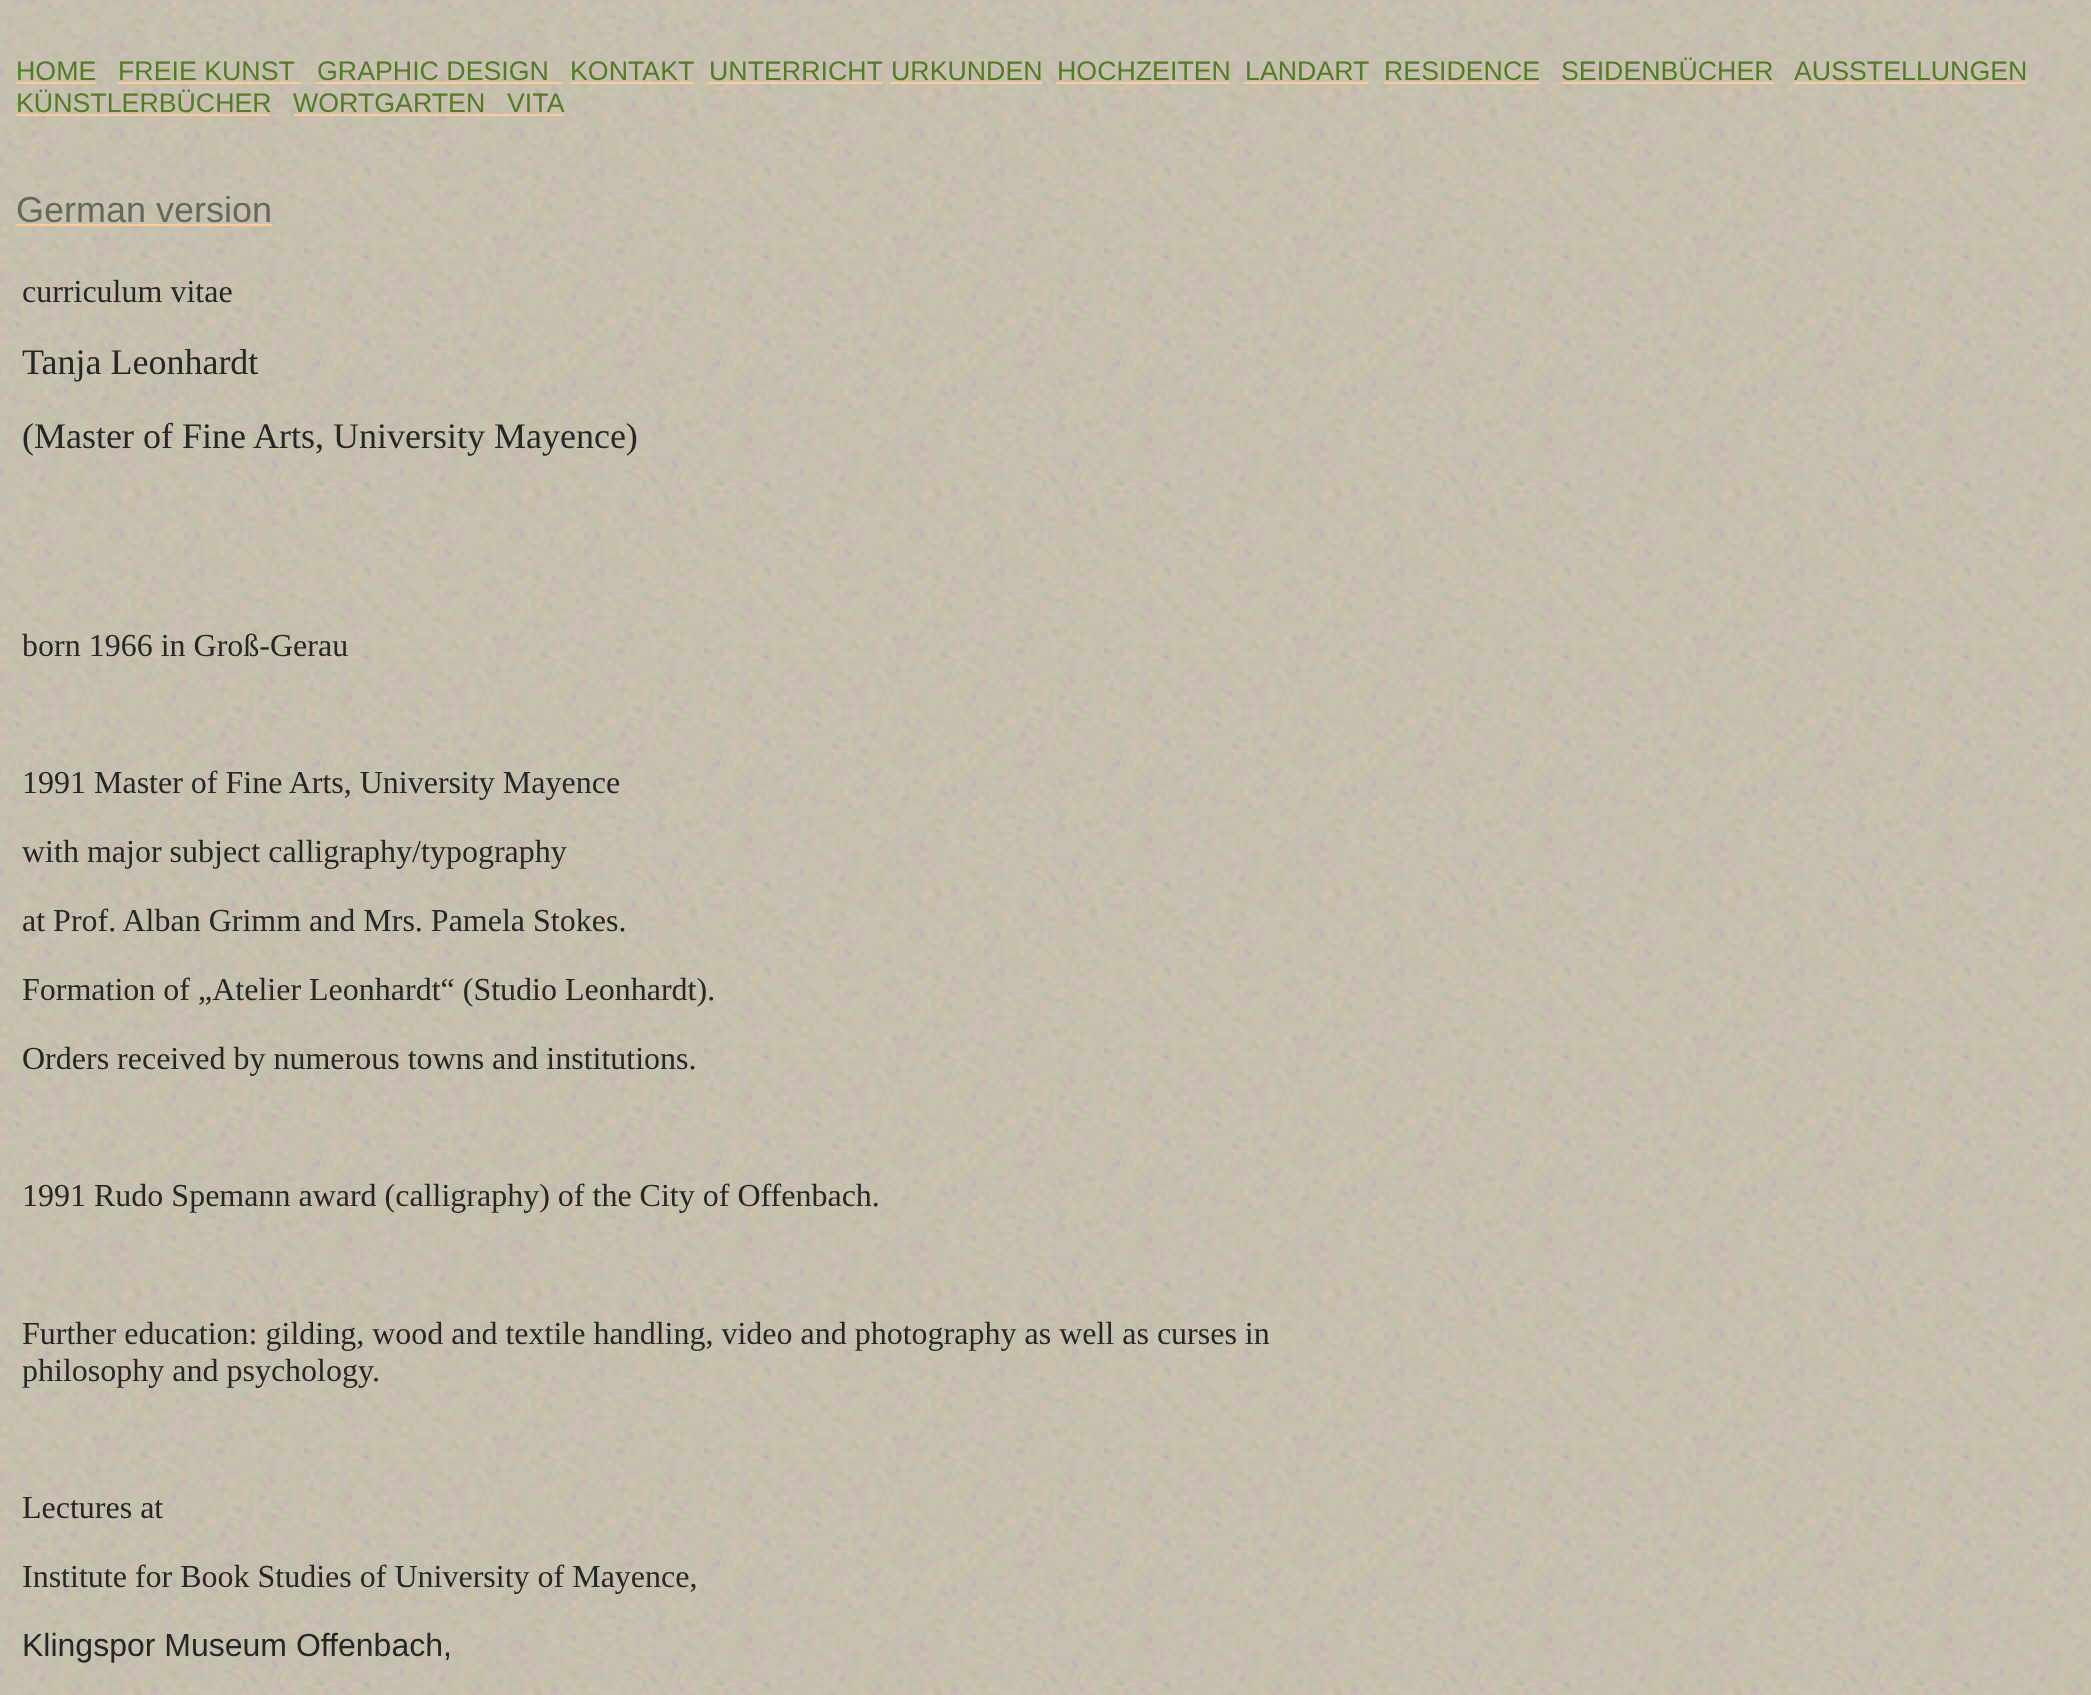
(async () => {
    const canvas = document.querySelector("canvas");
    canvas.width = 2091;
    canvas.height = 1695;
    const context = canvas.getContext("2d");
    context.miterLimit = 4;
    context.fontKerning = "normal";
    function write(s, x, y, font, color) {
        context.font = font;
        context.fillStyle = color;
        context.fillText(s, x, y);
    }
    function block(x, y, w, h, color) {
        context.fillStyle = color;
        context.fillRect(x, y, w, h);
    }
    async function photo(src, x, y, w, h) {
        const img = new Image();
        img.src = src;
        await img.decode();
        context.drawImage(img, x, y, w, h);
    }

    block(0, 0, 2091, 1695, "rgb(255, 255, 255)");
    await photo("media/1.png", 0, 0, 2091, 1695);
    write("HOME", 16, 80, "26.75px Liberation Sans", "rgb(83, 123, 39)");
    block(16, 82, 80, 2, "rgb(255, 204, 153)");
    write("FREIE KUNST", 118, 80, "26.75px Liberation Sans", "rgb(83, 123, 39)");
    block(118, 82, 184, 2, "rgb(255, 204, 153)");
    write("GRAPHIC DESIGN", 317, 80, "26.75px Liberation Sans", "rgb(83, 123, 39)");
    block(316, 82, 246, 2, "rgb(255, 204, 153)");
    write("KONTAKT", 570, 80, "26.75px Liberation Sans", "rgb(83, 123, 39)");
    block(570, 82, 124, 2, "rgb(255, 204, 153)");
    write("UNTERRICHT", 709, 80, "26.75px Liberation Sans", "rgb(83, 123, 39)");
    block(708, 82, 174, 2, "rgb(255, 204, 153)");
    write("URKUNDEN", 891, 80, "26.75px Liberation Sans", "rgb(83, 123, 39)");
    block(890, 82, 152, 2, "rgb(255, 204, 153)");
    write("HOCHZEITEN", 1057, 80, "26.75px Liberation Sans", "rgb(83, 123, 39)");
    block(1056, 82, 174, 2, "rgb(255, 204, 153)");
    write("LANDART", 1245, 80, "26.75px Liberation Sans", "rgb(83, 123, 39)");
    block(1244, 82, 124, 2, "rgb(255, 204, 153)");
    write("RESIDENCE", 1384, 80, "26.75px Liberation Sans", "rgb(83, 123, 39)");
    block(1384, 82, 156, 2, "rgb(255, 204, 153)");
    write("SEIDENBÜCHER", 1561, 80, "26.75px Liberation Sans", "rgb(83, 123, 39)");
    block(1562, 82, 212, 2, "rgb(255, 204, 153)");
    write("AUSSTELLUNGEN", 1794, 80, "26.75px Liberation Sans", "rgb(83, 123, 39)");
    block(1794, 82, 232, 2, "rgb(255, 204, 153)");
    write("KÜNSTLERBÜCHER", 16, 112, "26.75px Liberation Sans", "rgb(83, 123, 39)");
    block(16, 114, 254, 2, "rgb(255, 204, 153)");
    write("WORTGARTEN", 293, 112, "26.75px Liberation Sans", "rgb(83, 123, 39)");
    block(294, 114, 270, 2, "rgb(255, 204, 153)");
    write("VITA", 507, 112, "26.75px Liberation Sans", "rgb(83, 123, 39)");
    write("German version", 16, 222, "36px Liberation Sans", "rgb(100, 105, 94)");
    block(16, 224, 256, 2, "rgb(255, 204, 153)");
    write("curriculum vitae", 22, 302, "32px Liberation Serif", "rgb(37, 38, 38)");
    write("Tanja Leonhardt", 22, 374, "36px Liberation Serif", "rgb(37, 38, 38)");
    write("(Master of Fine Arts, University Mayence)", 22, 448, "36px Liberation Serif", "rgb(37, 38, 38)");
    write("born 1966 in Groß-Gerau", 22, 656, "32px Liberation Serif", "rgb(37, 38, 38)");
    write("1991 Master of Fine Arts, University Mayence", 22, 793, "32px Liberation Serif", "rgb(37, 38, 38)");
    write("with major subject calligraphy/typography", 22, 862, "32px Liberation Serif", "rgb(37, 38, 38)");
    write("at Prof. Alban Grimm and Mrs. Pamela Stokes.", 22, 931, "32px Liberation Serif", "rgb(37, 38, 38)");
    write("Formation of „Atelier Leonhardt“ (Studio Leonhardt).", 22, 1000, "32px Liberation Serif", "rgb(37, 38, 38)");
    write("Orders received by numerous towns and institutions.", 22, 1069, "32px Liberation Serif", "rgb(37, 38, 38)");
    write("1991 Rudo Spemann award (calligraphy) of the City of Offenbach.", 22, 1206, "32px Liberation Serif", "rgb(37, 38, 38)");
    write("Further education: gilding, wood and textile handling, video and photography as well as curses in", 22, 1344, "32px Liberation Serif", "rgb(37, 38, 38)");
    write("philosophy and psychology.", 22, 1381, "32px Liberation Serif", "rgb(37, 38, 38)");
    write("Lectures at", 22, 1518, "32px Liberation Serif", "rgb(37, 38, 38)");
    write("Institute for Book Studies of University of Mayence,", 22, 1587, "32px Liberation Serif", "rgb(37, 38, 38)");
    write("Klingspor Museum Offenbach,", 22, 1656, "32px Liberation Sans", "rgb(37, 38, 38)");
})();
